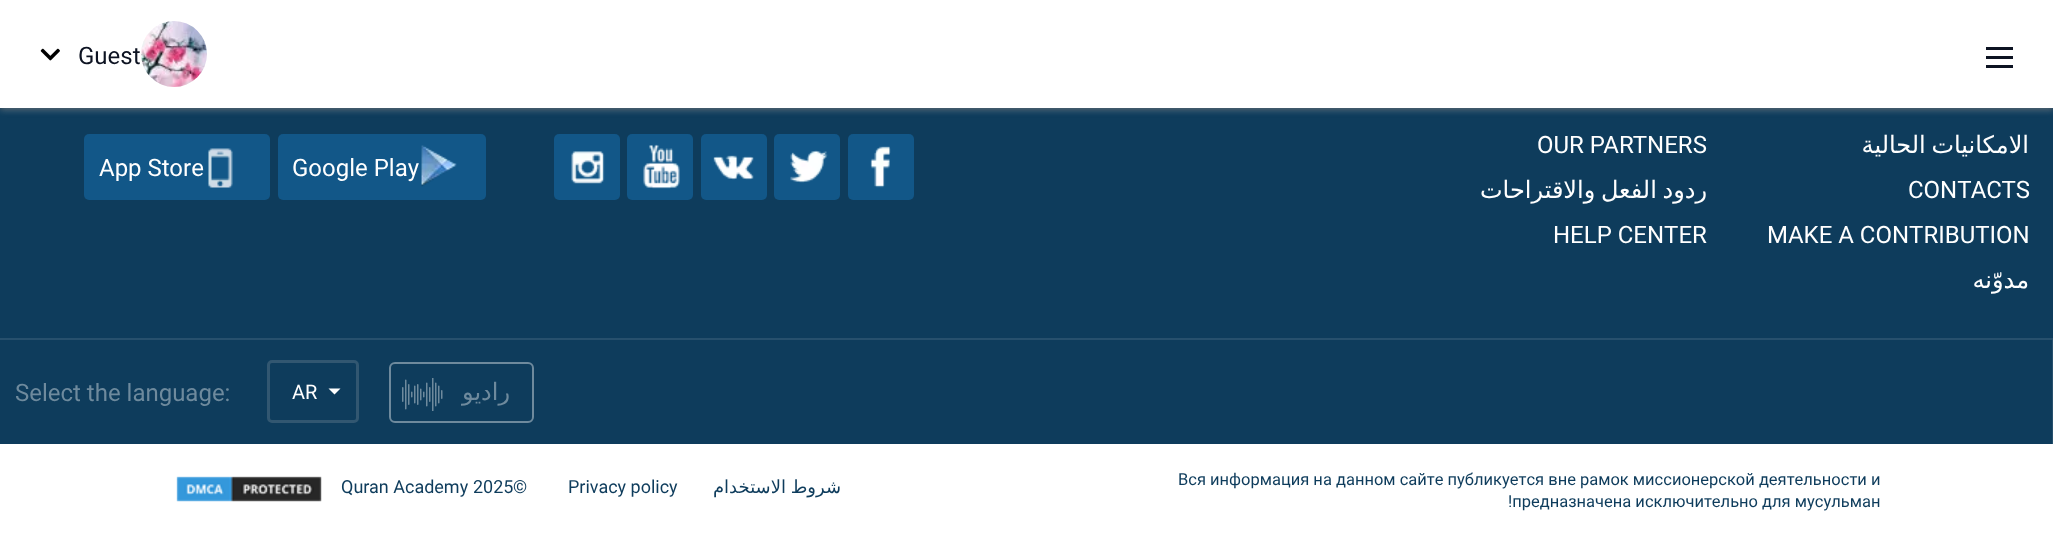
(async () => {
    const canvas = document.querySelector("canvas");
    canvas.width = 2053;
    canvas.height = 533;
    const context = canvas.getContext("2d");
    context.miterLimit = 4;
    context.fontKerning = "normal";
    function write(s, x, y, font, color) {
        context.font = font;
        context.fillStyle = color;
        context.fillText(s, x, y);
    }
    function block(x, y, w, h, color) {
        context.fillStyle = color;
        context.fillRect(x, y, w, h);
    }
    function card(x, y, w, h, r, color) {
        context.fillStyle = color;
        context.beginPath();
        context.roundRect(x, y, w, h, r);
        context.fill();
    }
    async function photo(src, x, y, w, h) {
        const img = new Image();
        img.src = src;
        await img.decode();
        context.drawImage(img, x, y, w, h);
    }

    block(0, 0, 2053, 533, "rgb(14, 60, 92)");
    context.fillStyle = "rgba(0, 0, 0, 0.2)";
    context.filter = "blur(1.5px)";
    context.beginPath();
    context.rect(0, 2, 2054, 108);
    context.fill();
    context.filter = "none";
    context.fillStyle = "rgba(170, 170, 170, 0.5)";
    context.filter = "blur(3px)";
    context.beginPath();
    context.rect(0, 2, 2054, 108);
    context.fill();
    context.filter = "none";
    block(0, 0, 2053, 108, "rgb(255, 255, 255)");
    await photo("media/1.png", 40, 48, 20, 13);
    write("Guest", 78, 64, "24px Roboto", "rgb(13, 19, 34)");
    await photo("media/2.png", 141, 21, 66, 66);
    block(1986, 47, 27, 3, "rgb(13, 19, 34)");
    block(1986, 56, 27, 3, "rgb(13, 19, 34)");
    block(1986, 65, 27, 3, "rgb(13, 19, 34)");
    card(84, 134, 186, 66, 5, "rgb(18, 87, 136)");
    write("App Store", 99, 176, "24px Roboto", "rgb(255, 255, 255)");
    await photo("media/3.png", 208, 148, 25, 40);
    card(278, 134, 208, 66, 5, "rgb(18, 87, 136)");
    write("Google Play", 292, 176, "24px Roboto", "rgb(255, 255, 255)");
    await photo("media/4.png", 421, 145, 36, 42);
    card(554, 134, 66, 66, 5, "rgb(18, 87, 136)");
    await photo("media/5.png", 571, 151, 34, 33);
    card(627, 134, 66, 66, 5, "rgb(18, 87, 136)");
    await photo("media/6.png", 643, 144, 37, 45);
    card(701, 134, 66, 66, 5, "rgb(18, 87, 136)");
    await photo("media/7.png", 713, 155, 41, 25);
    card(774, 134, 66, 66, 5, "rgb(18, 87, 136)");
    await photo("media/8.png", 790, 150, 38, 33);
    card(848, 134, 66, 66, 5, "rgb(18, 87, 136)");
    await photo("media/9.png", 870, 146, 21, 42);
    write("OUR PARTNERS", 1537, 153, "24px Roboto", "rgb(255, 255, 255)");
    context.wordSpacing = "-2px";
    context.direction = "rtl";
    write("ردود الفعل والاقتراحات", 1707, 198, "24px DejaVu Sans", "rgb(255, 255, 255)");
    context.wordSpacing = "0px";
    context.direction = "ltr";
    write("HELP CENTER", 1553, 243, "24px Roboto", "rgb(255, 255, 255)");
    context.wordSpacing = "-2px";
    context.direction = "rtl";
    write("الامكانيات الحالية", 2029, 153, "24px DejaVu Sans", "rgb(255, 255, 255)");
    context.wordSpacing = "0px";
    context.direction = "ltr";
    write("CONTACTS", 1908, 198, "24px Roboto", "rgb(255, 255, 255)");
    write("MAKE A CONTRIBUTION", 1767, 243, "24px Roboto", "rgb(255, 255, 255)");
    context.direction = "rtl";
    write("مدوّنه", 2029, 288, "24px DejaVu Sans", "rgb(255, 255, 255)");
    block(0, 338, 2053, 2, "rgb(39, 80, 109)");
    block(2052, 339, 1, 105, "rgb(39, 80, 109)");
    context.direction = "ltr";
    write("Select the language:", 15, 401, "24px Roboto", "rgb(110, 138, 157)");
    context.beginPath();
    context.roundRect(268.5, 361.5, 89, 60, 3.5);
    context.strokeStyle = "rgb(50, 87, 113)";
    context.lineWidth = 3;
    context.stroke();
    write("AR", 292, 399, "20px Roboto", "rgb(255, 255, 255)");
    context.beginPath();
    context.moveTo(328.5, 388.5);
    context.lineTo(340.5, 388.5);
    context.lineTo(334.5, 394.5);
    context.closePath();
    context.fill();
    context.beginPath();
    context.roundRect(390, 363, 143, 59, 5);
    context.strokeStyle = "rgb(110, 138, 157)";
    context.lineWidth = 2;
    context.stroke();
    await photo("media/10.png", 402, 378, 41, 33);
    context.direction = "rtl";
    write("راديو", 510, 400, "24px DejaVu Sans", "rgb(110, 138, 157)");
    block(0, 444, 2053, 89, "rgb(255, 255, 255)");
    await photo("media/11.png", 176, 476, 146, 26);
    context.direction = "ltr";
    write("Quran Academy", 341, 493, "18px Roboto", "rgb(14, 60, 92)");
    write("2025", 473, 493, "18px Roboto", "rgb(14, 60, 92)");
    write("©", 513, 493, "18px Roboto", "rgb(14, 60, 92)");
    write("Privacy policy", 568, 493, "18px Roboto", "rgb(14, 60, 92)");
    context.wordSpacing = "-1px";
    context.direction = "rtl";
    write("شروط الاستخدام", 841, 493, "18px DejaVu Sans", "rgb(14, 60, 92)");
    context.wordSpacing = "0px";
    context.direction = "ltr";
    write("Вся информация на данном сайте публикуется вне рамок миссионерской деятельности и", 1178, 485, "16.5px Roboto", "rgb(14, 60, 92)");
    write("!предназначена исключительно для мусульман", 1508, 507, "16.5px Roboto", "rgb(14, 60, 92)");
})();
